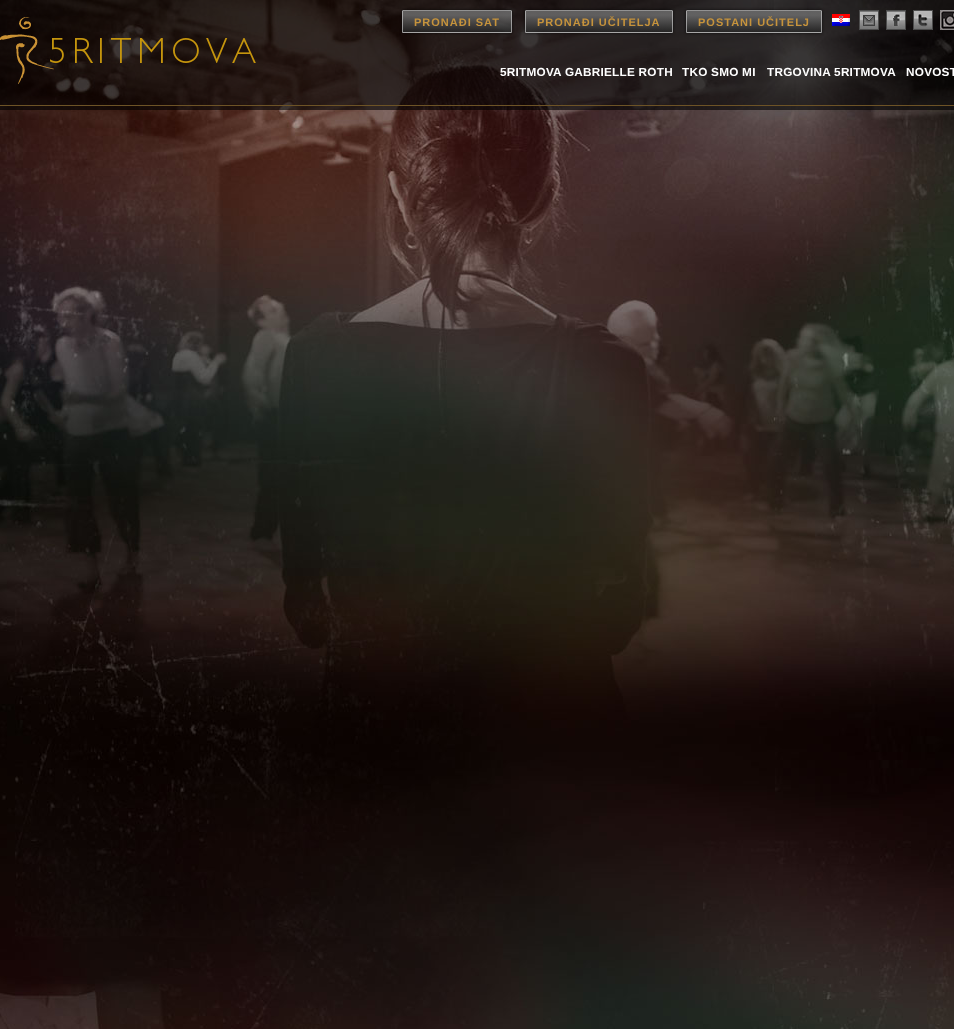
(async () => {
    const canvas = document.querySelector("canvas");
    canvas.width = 954;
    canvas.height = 1029;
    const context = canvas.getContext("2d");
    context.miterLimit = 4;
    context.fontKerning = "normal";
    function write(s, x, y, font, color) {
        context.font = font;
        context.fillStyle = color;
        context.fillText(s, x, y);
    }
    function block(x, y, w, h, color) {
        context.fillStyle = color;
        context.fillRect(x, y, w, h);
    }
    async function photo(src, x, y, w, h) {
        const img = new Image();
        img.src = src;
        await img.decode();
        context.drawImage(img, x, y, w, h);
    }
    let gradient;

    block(0, 0, 954, 1029, "rgb(255, 255, 255)");
    await photo("media/1.png", 0, 800, 954, 229);
    await photo("media/2.png", 0, 0, 954, 800);
    block(0, 0, 954, 110, "rgba(0, 0, 0, 0.6)");
    block(0, 105, 954, 1, "rgb(109, 83, 38)");
    await photo("media/3.png", 0, 17, 256, 67);
    context.save();
    context.beginPath();
    context.moveTo(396, 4);
    context.lineTo(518, 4);
    context.lineTo(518, 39);
    context.lineTo(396, 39);
    context.closePath();
    context.moveTo(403, 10);
    context.lineTo(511, 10);
    context.bezierCurveTo(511.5, 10, 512, 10.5, 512, 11);
    context.lineTo(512, 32);
    context.bezierCurveTo(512, 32.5, 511.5, 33, 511, 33);
    context.lineTo(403, 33);
    context.bezierCurveTo(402.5, 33, 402, 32.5, 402, 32);
    context.lineTo(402, 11);
    context.bezierCurveTo(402, 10.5, 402.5, 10, 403, 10);
    context.closePath();
    context.clip("evenodd");
    context.fillStyle = "rgba(0, 0, 0, 0.7)";
    context.filter = "blur(1.5px)";
    context.beginPath();
    context.roundRect(402, 10, 110, 23, 1);
    context.fill();
    context.filter = "none";
    context.restore();
    gradient = context.createLinearGradient(457, -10, 457, 11);
    gradient.addColorStop(0.2, "rgba(112, 112, 112, 0.8)");
    gradient.addColorStop(1, "rgba(37, 37, 37, 0.8)");
    context.fillStyle = gradient;
    context.beginPath();
    context.roundRect(402, 10, 110, 1, [1, 1, 0, 0]);
    context.fill();
    gradient = context.createLinearGradient(457, 11, 457, 32);
    gradient.addColorStop(0.2, "rgba(112, 112, 112, 0.8)");
    gradient.addColorStop(1, "rgba(37, 37, 37, 0.8)");
    context.fillStyle = gradient;
    context.fillRect(402, 11, 110, 21);
    gradient = context.createLinearGradient(457, 32, 457, 53);
    gradient.addColorStop(0.2, "rgba(112, 112, 112, 0.8)");
    gradient.addColorStop(1, "rgba(37, 37, 37, 0.8)");
    context.fillStyle = gradient;
    context.beginPath();
    context.roundRect(402, 32, 110, 1, [0, 0, 1, 1]);
    context.fill();
    context.beginPath();
    context.roundRect(402.5, 10.5, 109, 22, 0.5);
    context.strokeStyle = "rgba(204, 204, 204, 0.65)";
    context.stroke();
    context.letterSpacing = "1px";
    write("PRONAĐI SAT", 414, 26, "bold 11px Liberation Sans", "rgb(198, 147, 60)");
    context.save();
    context.beginPath();
    context.moveTo(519, 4);
    context.lineTo(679, 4);
    context.lineTo(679, 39);
    context.lineTo(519, 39);
    context.closePath();
    context.moveTo(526, 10);
    context.lineTo(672, 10);
    context.bezierCurveTo(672.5, 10, 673, 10.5, 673, 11);
    context.lineTo(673, 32);
    context.bezierCurveTo(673, 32.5, 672.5, 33, 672, 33);
    context.lineTo(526, 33);
    context.bezierCurveTo(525.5, 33, 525, 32.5, 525, 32);
    context.lineTo(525, 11);
    context.bezierCurveTo(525, 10.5, 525.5, 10, 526, 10);
    context.closePath();
    context.clip("evenodd");
    context.fillStyle = "rgba(0, 0, 0, 0.7)";
    context.filter = "blur(1.5px)";
    context.beginPath();
    context.roundRect(525, 10, 148, 23, 1);
    context.fill();
    context.filter = "none";
    context.restore();
    gradient = context.createLinearGradient(599, -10, 599, 11);
    gradient.addColorStop(0.2, "rgba(112, 112, 112, 0.8)");
    gradient.addColorStop(1, "rgba(37, 37, 37, 0.8)");
    context.fillStyle = gradient;
    context.beginPath();
    context.roundRect(525, 10, 148, 1, [1, 1, 0, 0]);
    context.fill();
    gradient = context.createLinearGradient(599, 11, 599, 32);
    gradient.addColorStop(0.2, "rgba(112, 112, 112, 0.8)");
    gradient.addColorStop(1, "rgba(37, 37, 37, 0.8)");
    context.fillStyle = gradient;
    context.fillRect(525, 11, 148, 21);
    gradient = context.createLinearGradient(599, 32, 599, 53);
    gradient.addColorStop(0.2, "rgba(112, 112, 112, 0.8)");
    gradient.addColorStop(1, "rgba(37, 37, 37, 0.8)");
    context.fillStyle = gradient;
    context.beginPath();
    context.roundRect(525, 32, 148, 1, [0, 0, 1, 1]);
    context.fill();
    context.beginPath();
    context.roundRect(525.5, 10.5, 147, 22, 0.5);
    context.stroke();
    write("PRONAĐI UČITELJA", 537, 26, "bold 11px Liberation Sans", "rgb(198, 147, 60)");
    context.save();
    context.beginPath();
    context.moveTo(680, 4);
    context.lineTo(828, 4);
    context.lineTo(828, 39);
    context.lineTo(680, 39);
    context.closePath();
    context.moveTo(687, 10);
    context.lineTo(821, 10);
    context.bezierCurveTo(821.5, 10, 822, 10.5, 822, 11);
    context.lineTo(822, 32);
    context.bezierCurveTo(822, 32.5, 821.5, 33, 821, 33);
    context.lineTo(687, 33);
    context.bezierCurveTo(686.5, 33, 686, 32.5, 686, 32);
    context.lineTo(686, 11);
    context.bezierCurveTo(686, 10.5, 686.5, 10, 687, 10);
    context.closePath();
    context.clip("evenodd");
    context.fillStyle = "rgba(0, 0, 0, 0.7)";
    context.filter = "blur(1.5px)";
    context.beginPath();
    context.roundRect(686, 10, 136, 23, 1);
    context.fill();
    context.filter = "none";
    context.restore();
    gradient = context.createLinearGradient(754, -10, 754, 11);
    gradient.addColorStop(0.2, "rgba(112, 112, 112, 0.8)");
    gradient.addColorStop(1, "rgba(37, 37, 37, 0.8)");
    context.fillStyle = gradient;
    context.beginPath();
    context.roundRect(686, 10, 136, 1, [1, 1, 0, 0]);
    context.fill();
    gradient = context.createLinearGradient(754, 11, 754, 32);
    gradient.addColorStop(0.2, "rgba(112, 112, 112, 0.8)");
    gradient.addColorStop(1, "rgba(37, 37, 37, 0.8)");
    context.fillStyle = gradient;
    context.fillRect(686, 11, 136, 21);
    gradient = context.createLinearGradient(754, 32, 754, 53);
    gradient.addColorStop(0.2, "rgba(112, 112, 112, 0.8)");
    gradient.addColorStop(1, "rgba(37, 37, 37, 0.8)");
    context.fillStyle = gradient;
    context.beginPath();
    context.roundRect(686, 32, 136, 1, [0, 0, 1, 1]);
    context.fill();
    context.beginPath();
    context.roundRect(686.5, 10.5, 135, 22, 0.5);
    context.stroke();
    write("POSTANI UČITELJ", 698, 26, "bold 11px Liberation Sans", "rgb(198, 147, 60)");
    await photo("media/4.png", 832, 14, 18, 12);
    await photo("media/5.png", 859, 10, 20, 20);
    await photo("media/6.png", 886, 10, 20, 20);
    await photo("media/7.png", 913, 10, 20, 20);
    await photo("media/8.png", 940, 10, 14, 20);
    context.letterSpacing = "0.25px";
    write("5RITMOVA GABRIELLE ROTH", 500, 76, "bold 11.75px Liberation Sans", "rgb(255, 255, 255)");
    write("TKO SMO MI", 682, 76, "bold 11.75px Liberation Sans", "rgb(255, 255, 255)");
    write("TRGOVINA 5RITMOVA", 767, 76, "bold 11.75px Liberation Sans", "rgb(255, 255, 255)");
    write("NOVOST", 906, 76, "bold 11.75px Liberation Sans", "rgb(255, 255, 255)");
})();
